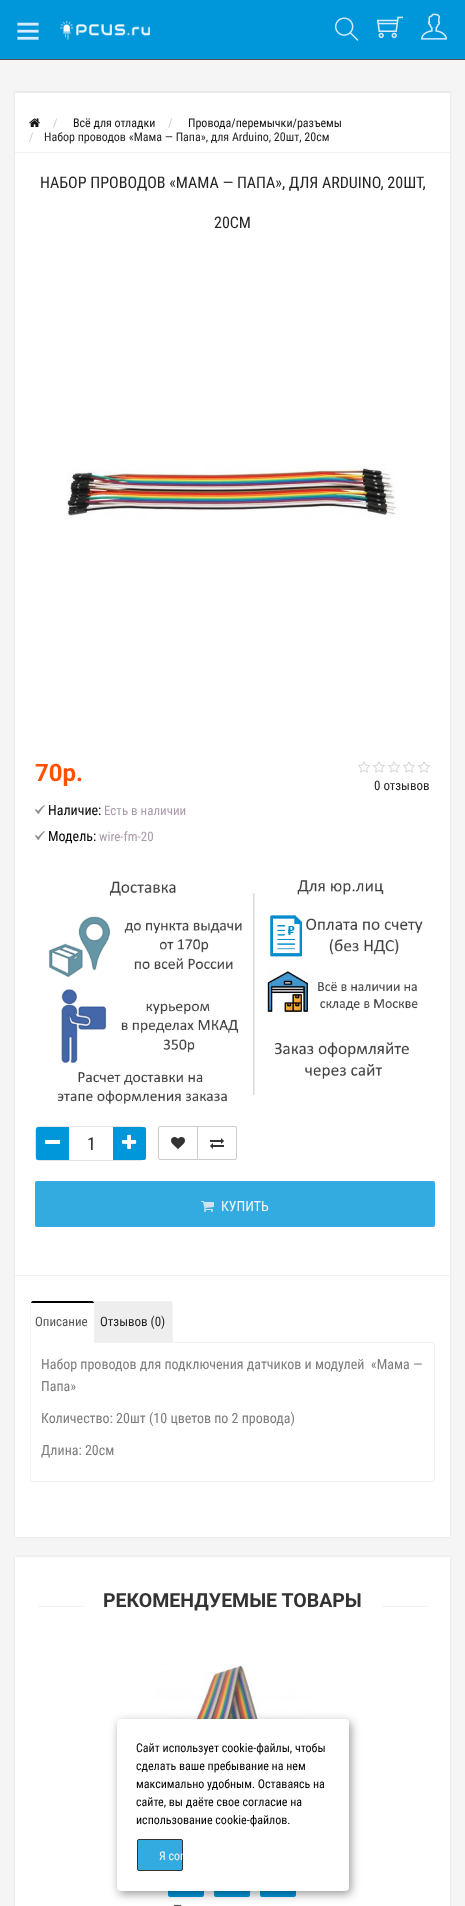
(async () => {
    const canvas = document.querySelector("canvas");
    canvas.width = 465;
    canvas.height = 1906;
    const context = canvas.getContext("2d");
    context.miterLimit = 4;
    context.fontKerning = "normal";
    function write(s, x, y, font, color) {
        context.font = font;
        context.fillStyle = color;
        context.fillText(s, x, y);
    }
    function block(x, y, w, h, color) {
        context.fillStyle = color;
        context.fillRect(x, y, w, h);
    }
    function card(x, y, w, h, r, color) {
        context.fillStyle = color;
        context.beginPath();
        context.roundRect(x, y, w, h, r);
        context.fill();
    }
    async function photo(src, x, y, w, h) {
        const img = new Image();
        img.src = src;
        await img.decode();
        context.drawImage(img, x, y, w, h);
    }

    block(0, 0, 465, 1906, "rgb(245, 245, 245)");
    block(0, 0, 465, 59, "rgb(0, 150, 218)");
    block(0, 59, 465, 1, "rgb(82, 82, 82)");
    await photo("media/1.png", 17, 22, 22, 18);
    await photo("media/2.png", 60, 21, 90, 19);
    await photo("media/3.png", 335, 17, 24, 24);
    await photo("media/4.png", 376, 16, 27, 23);
    await photo("media/5.png", 421, 13, 26, 27);
    context.fillStyle = "rgba(0, 0, 0, 0.1)";
    context.filter = "blur(1px)";
    context.beginPath();
    context.rect(15, 92, 435, 1445);
    context.fill();
    context.filter = "none";
    block(15, 93, 435, 1444, "rgb(255, 255, 255)");
    block(15, 92, 435, 1, "rgb(234, 234, 234)");
    await photo("media/6.png", 29, 118, 11, 9);
    write("/", 53, 127, "12px Roboto Condensed", "rgb(204, 204, 204)");
    write("Всё для отладки", 73, 127, "12px Roboto Condensed", "rgb(20, 20, 20)");
    write("/", 168, 127, "12px Roboto Condensed", "rgb(204, 204, 204)");
    write("Провода/перемычки/разъемы", 188, 127, "12px Roboto Condensed", "rgb(20, 20, 20)");
    write("/", 29, 141, "12px Roboto Condensed", "rgb(204, 204, 204)");
    write("Набор проводов «Мама — Папа», для Arduino, 20шт, 20см", 44, 141, "12px Roboto Condensed", "rgb(37, 37, 37)");
    block(15, 152, 435, 1, "rgb(242, 242, 242)");
    write("НАБОР ПРОВОДОВ «МАМА — ПАПА», ДЛЯ ARDUINO, 20ШТ,", 40, 188, "16px Roboto Condensed", "rgb(37, 37, 37)");
    write("20СМ", 214, 228, "16px Roboto Condensed", "rgb(37, 37, 37)");
    await photo("media/7.png", 66, 464, 333, 55);
    write("70р.", 35, 781, "bold 24px Roboto", "rgb(255, 81, 0)");
    await photo("media/8.png", 358, 761, 12, 12);
    await photo("media/8.png", 373, 761, 12, 12);
    await photo("media/8.png", 388, 761, 12, 12);
    await photo("media/8.png", 403, 761, 12, 12);
    await photo("media/8.png", 418, 761, 12, 12);
    write("0 отзывов", 374, 790, "13px Roboto Condensed", "rgb(37, 37, 37)");
    await photo("media/9.png", 35, 805, 10, 9);
    write("Наличие:", 48, 815, "14px Roboto Condensed", "rgb(0, 0, 0)");
    write("Есть в наличии", 104, 815, "13px Roboto Condensed", "rgb(170, 153, 170)");
    await photo("media/9.png", 35, 831, 10, 9);
    write("Модель:", 48, 841, "14px Roboto Condensed", "rgb(0, 0, 0)");
    write("wire-fm-20", 99, 841, "13px Roboto Condensed", "rgb(170, 153, 170)");
    await photo("media/10.png", 48, 880, 375, 224);
    context.beginPath();
    context.roundRect(35.5, 1126.5, 109, 34, 4.5);
    context.strokeStyle = "rgb(229, 229, 229)";
    context.stroke();
    context.fillStyle = "rgb(0, 150, 218)";
    context.beginPath();
    context.roundRect(36, 1127, 33, 33, [2, 0, 0, 2]);
    context.fill();
    block(45, 1140, 15, 4, "rgb(255, 255, 255)");
    context.fillStyle = "rgb(0, 150, 218)";
    context.beginPath();
    context.roundRect(113, 1127, 33, 33, [0, 2, 2, 0]);
    context.fill();
    await photo("media/11.png", 122, 1134, 15, 15);
    write("1", 87, 1150, "18px Roboto Condensed", "rgb(37, 37, 37)");
    context.beginPath();
    context.roundRect(158.5, 1126.5, 39, 33, [1.5, 0, 0, 1.5]);
    context.strokeStyle = "rgb(204, 204, 204)";
    context.stroke();
    await photo("media/12.png", 171, 1137, 14, 12);
    context.fillStyle = "rgb(255, 255, 255)";
    context.beginPath();
    context.roundRect(197.5, 1126.5, 39, 33, [0, 1.5, 1.5, 0]);
    context.fill();
    context.stroke();
    await photo("media/13.png", 210, 1138, 14, 11);
    card(35, 1181, 400, 46, 2, "rgb(51, 171, 225)");
    await photo("media/14.png", 201, 1201, 13, 11);
    write("КУПИТЬ", 221, 1211, "14px Roboto Condensed", "rgb(245, 245, 245)");
    block(15, 1275, 435, 1, "rgb(242, 242, 242)");
    block(172, 1303, 1, 39, "rgb(242, 242, 242)");
    block(30, 1303, 1, 39, "rgb(242, 242, 242)");
    context.beginPath();
    context.roundRect(30.5, 1342.5, 404, 139, [0, 2.5, 2.5, 2.5]);
    context.strokeStyle = "rgb(242, 242, 242)";
    context.stroke();
    context.fillStyle = "rgb(255, 255, 255)";
    context.beginPath();
    context.roundRect(31, 1301, 63, 42, [2, 2, 0, 0]);
    context.fill();
    context.fillStyle = "rgb(0, 0, 0)";
    context.beginPath();
    context.moveTo(33, 1301);
    context.bezierCurveTo(32, 1301, 31, 1302, 31, 1303);
    context.lineTo(94, 1303);
    context.bezierCurveTo(94, 1302, 93, 1301, 92, 1301);
    context.closePath();
    context.fill();
    write("Описание", 35, 1326, "13px Roboto Condensed", "rgb(85, 85, 85)");
    block(95, 1302, 77, 40, "rgb(238, 238, 238)");
    block(94, 1301, 78, 1, "rgb(242, 242, 242)");
    block(94, 1301, 1, 42, "rgb(242, 242, 242)");
    write("Отзывов (0)", 100, 1326, "13px Roboto Condensed", "rgb(37, 37, 37)");
    write("Набор проводов для подключения датчиков и модулей  «Мама —", 41, 1369, "14px Roboto Condensed", "rgb(125, 125, 125)");
    write("Папа»", 41, 1391, "14px Roboto Condensed", "rgb(125, 125, 125)");
    write("Количество: 20шт (10 цветов по 2 провода)", 41, 1423, "14px Roboto Condensed", "rgb(125, 125, 125)");
    write("Длина: 20см", 41, 1455, "14px Roboto Condensed", "rgb(125, 125, 125)");
    context.fillStyle = "rgba(0, 0, 0, 0.1)";
    context.filter = "blur(1px)";
    context.beginPath();
    context.rect(15, 1557, 435, 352);
    context.fill();
    context.filter = "none";
    block(15, 1557, 435, 349, "rgb(255, 255, 255)");
    block(38, 1606, 389, 1, "rgb(242, 242, 242)");
    block(83, 1606, 299, 1, "rgb(255, 255, 255)");
    write("РЕКОМЕНДУЕМЫЕ ТОВАРЫ", 103, 1607, "bold 19.5px Roboto", "rgb(51, 51, 51)");
    await photo("media/15.png", 149, 1664, 162, 55);
    card(168, 1864, 36, 33, 2, "rgb(0, 150, 218)");
    card(214, 1864, 36, 33, 2, "rgb(0, 150, 218)");
    card(260, 1864, 36, 33, 2, "rgb(0, 150, 218)");
    write("—", 173, 1910, "13px Roboto Condensed", "rgb(64, 64, 64)");
    context.fillStyle = "rgba(0, 0, 0, 0.4)";
    context.filter = "blur(5px)";
    context.beginPath();
    context.roundRect(119, 1722, 232, 172, 4);
    context.fill();
    context.filter = "none";
    card(117, 1719, 232, 172, 4, "rgb(255, 255, 255)");
    write("Сайт использует cookie-файлы, чтобы", 136, 1752, "12px Roboto Condensed", "rgb(0, 0, 0)");
    write("сделать ваше пребывание на нем", 136, 1770, "12px Roboto Condensed", "rgb(0, 0, 0)");
    write("максимально удобным. Оставаясь на", 136, 1788, "12px Roboto Condensed", "rgb(0, 0, 0)");
    write("сайте, вы даёте свое согласие на", 136, 1806, "12px Roboto Condensed", "rgb(0, 0, 0)");
    write("использование cookie-файлов.", 136, 1824, "12px Roboto Condensed", "rgb(0, 0, 0)");
    context.fillStyle = "rgb(51, 171, 225)";
    context.beginPath();
    context.roundRect(137.5, 1839.5, 45, 31, 1.5);
    context.fill();
    context.strokeStyle = "rgb(51, 51, 51)";
    context.stroke();
    write("Я сог", 159, 1860, "12px Roboto Condensed", "rgb(245, 245, 245)");
})();
